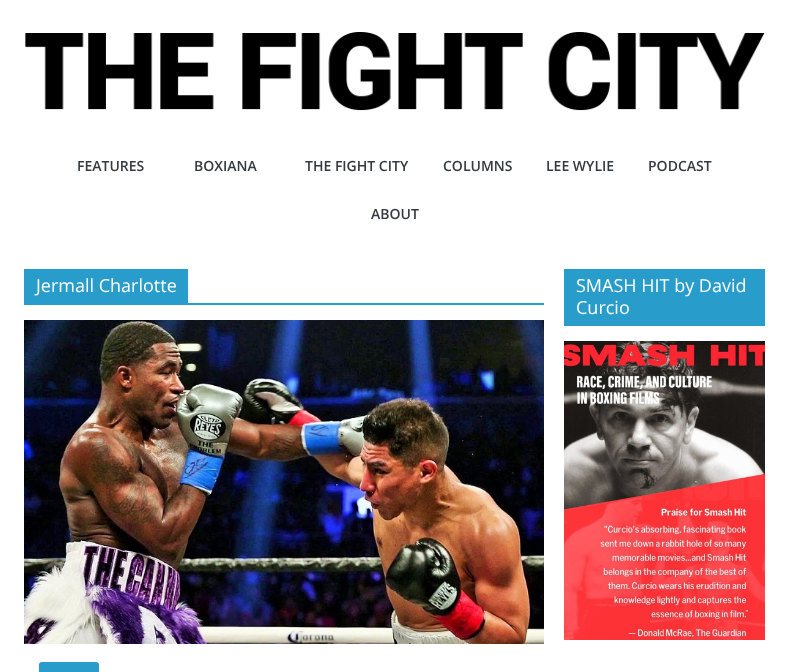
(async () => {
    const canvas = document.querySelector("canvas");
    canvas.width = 789;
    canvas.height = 672;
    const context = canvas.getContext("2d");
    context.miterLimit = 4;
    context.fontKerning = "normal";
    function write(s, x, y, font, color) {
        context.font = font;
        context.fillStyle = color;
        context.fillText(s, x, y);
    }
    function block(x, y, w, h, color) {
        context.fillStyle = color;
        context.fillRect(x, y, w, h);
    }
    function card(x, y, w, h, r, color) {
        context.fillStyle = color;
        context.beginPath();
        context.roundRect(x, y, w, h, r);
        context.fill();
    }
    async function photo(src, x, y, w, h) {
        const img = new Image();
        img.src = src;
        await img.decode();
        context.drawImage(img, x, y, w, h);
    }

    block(0, 0, 789, 672, "rgb(255, 255, 255)");
    await photo("media/1.png", 25, 32, 740, 79);
    write("FEATURES", 77, 171, "600 14px Open Sans", "rgb(52, 58, 64)");
    write("BOXIANA", 194, 171, "600 14px Open Sans", "rgb(52, 58, 64)");
    write("THE FIGHT CITY", 305, 171, "600 14px Open Sans", "rgb(52, 58, 64)");
    write("COLUMNS", 443, 171, "600 14px Open Sans", "rgb(52, 58, 64)");
    write("LEE WYLIE", 546, 171, "600 14px Open Sans", "rgb(52, 58, 64)");
    write("PODCAST", 648, 171, "600 14px Open Sans", "rgb(52, 58, 64)");
    write("ABOUT", 371, 219, "600 14px Open Sans", "rgb(52, 58, 64)");
    block(24, 303, 520, 2, "rgb(40, 157, 204)");
    block(24, 269, 164, 34, "rgb(40, 157, 204)");
    write("Jermall Charlotte", 36, 292, "18px Open Sans", "rgb(255, 255, 255)");
    await photo("media/2.png", 24, 320, 520, 324);
    card(39, 662, 60, 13, 3, "rgb(40, 157, 204)");
    block(564, 269, 201, 57, "rgb(40, 157, 204)");
    write("SMASH HIT by David", 576, 292, "18px Open Sans", "rgb(255, 255, 255)");
    write("Curcio", 576, 314, "18px Open Sans", "rgb(255, 255, 255)");
    await photo("media/3.png", 564, 341, 201, 299);
})();
